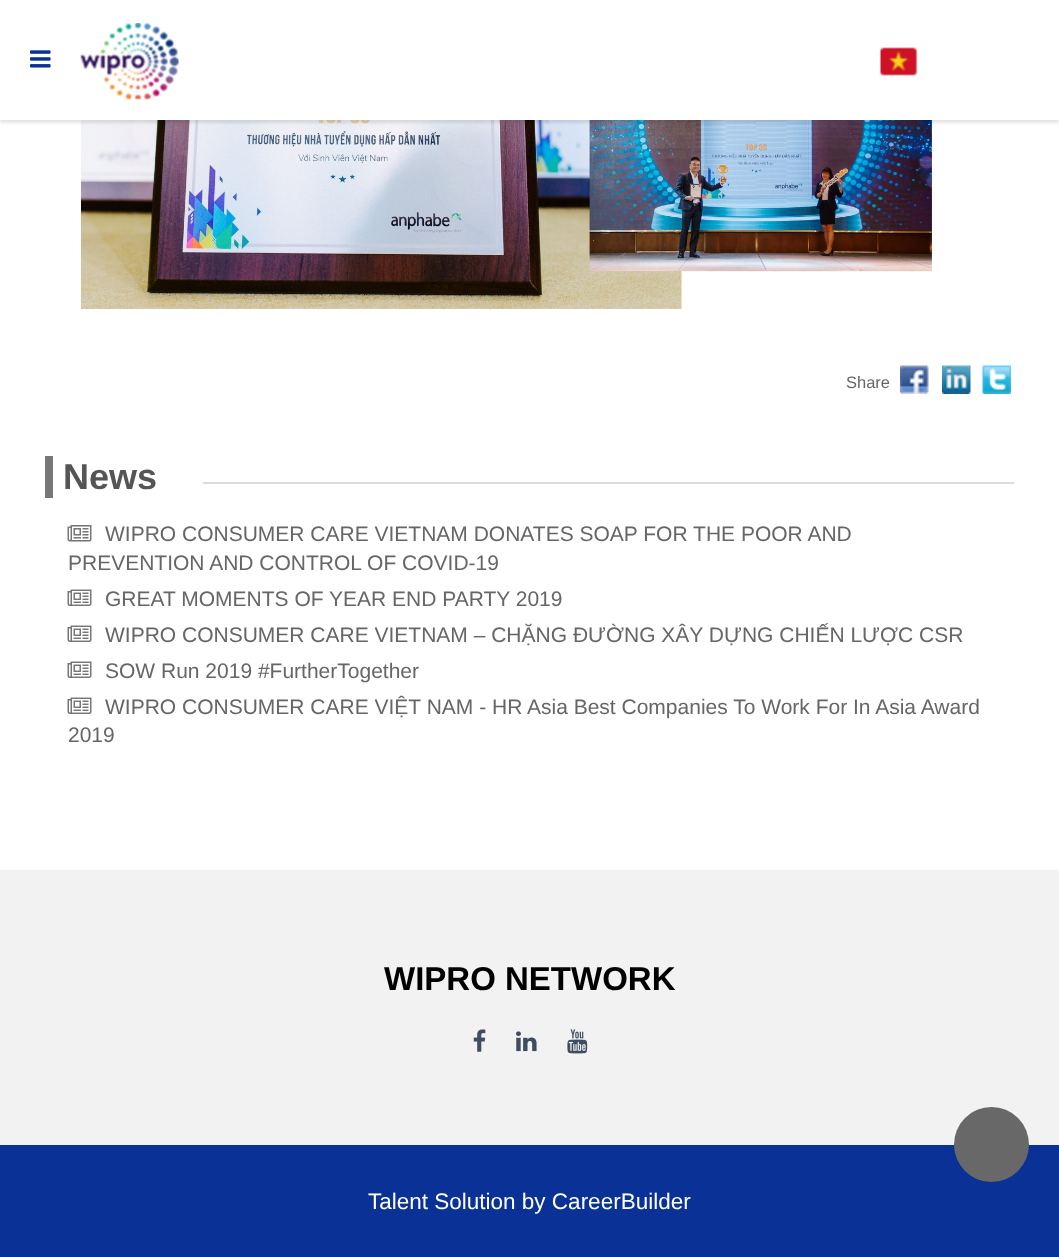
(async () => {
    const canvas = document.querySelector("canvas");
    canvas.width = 1059;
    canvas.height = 1257;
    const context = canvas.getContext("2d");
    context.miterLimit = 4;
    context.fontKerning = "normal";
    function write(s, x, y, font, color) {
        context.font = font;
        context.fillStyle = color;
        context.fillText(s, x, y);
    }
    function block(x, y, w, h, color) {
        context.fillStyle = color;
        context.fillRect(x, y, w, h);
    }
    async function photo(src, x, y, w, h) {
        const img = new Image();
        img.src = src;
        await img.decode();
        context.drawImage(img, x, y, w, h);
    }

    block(0, 0, 1059, 1257, "rgb(255, 255, 255)");
    await photo("media/4.png", 80, 120, 855, 190);
    context.fillStyle = "rgba(0, 0, 0, 0.1)";
    context.filter = "blur(1.5px)";
    context.beginPath();
    context.rect(0, 3, 1059, 120);
    context.fill();
    context.filter = "none";
    block(0, 1, 1059, 119, "rgb(255, 255, 255)");
    await photo("media/1.png", 30, 50, 21, 18);
    await photo("media/2.png", 80, 23, 99, 77);
    await photo("media/3.png", 880, 47, 38, 29);
    write("Share", 846, 388, "16.5px Liberation Sans", "rgb(102, 102, 102)");
    await photo("media/5.png", 900, 365, 29, 29);
    await photo("media/6.png", 942, 365, 29, 29);
    await photo("media/7.png", 982, 365, 29, 29);
    block(45, 456, 8, 42, "rgb(119, 119, 119)");
    write("News", 63, 489, "bold 36px Liberation Sans", "rgb(85, 85, 85)");
    block(203, 482, 811, 2, "rgb(220, 220, 220)");
    await photo("media/8.png", 67, 525, 25, 17);
    write("WIPRO CONSUMER CARE VIETNAM DONATES SOAP FOR THE POOR AND", 105, 541, "21px Liberation Sans", "rgb(102, 102, 102)");
    write("PREVENTION AND CONTROL OF COVID-19", 68, 570, "21px Liberation Sans", "rgb(102, 102, 102)");
    await photo("media/9.png", 67, 589, 25, 17);
    write("GREAT MOMENTS OF YEAR END PARTY 2019", 105, 606, "21px Liberation Sans", "rgb(102, 102, 102)");
    await photo("media/9.png", 67, 625, 25, 17);
    write("WIPRO CONSUMER CARE VIETNAM – CHẶNG ĐƯỜNG XÂY DỰNG CHIẾN LƯỢC CSR", 105, 642, "21px Liberation Sans", "rgb(102, 102, 102)");
    await photo("media/9.png", 67, 661, 25, 17);
    write("SOW Run 2019 #FurtherTogether", 105, 678, "21px Liberation Sans", "rgb(102, 102, 102)");
    await photo("media/9.png", 67, 697, 25, 17);
    write("WIPRO CONSUMER CARE VIỆT NAM - HR Asia Best Companies To Work For In Asia Award", 105, 714, "21px Liberation Sans", "rgb(102, 102, 102)");
    write("2019", 68, 742, "21px Liberation Sans", "rgb(102, 102, 102)");
    block(0, 870, 1059, 275, "rgb(242, 242, 242)");
    write("WIPRO NETWORK", 384, 990, "bold 33px Liberation Sans", "rgb(0, 0, 0)");
    await photo("media/10.png", 473, 1029, 13, 23);
    await photo("media/11.png", 516, 1031, 21, 21);
    await photo("media/12.png", 567, 1029, 21, 25);
    block(0, 1145, 1059, 112, "rgb(10, 50, 150)");
    context.fillStyle = "rgb(104, 104, 104)";
    context.beginPath();
    context.arc(991.5, 1144.5, 37.5, 0, Math.PI * 2);
    context.fill();
    write("Talent Solution by CareerBuilder", 368, 1209, "22.5px Liberation Sans", "rgb(255, 255, 255)");
})();
